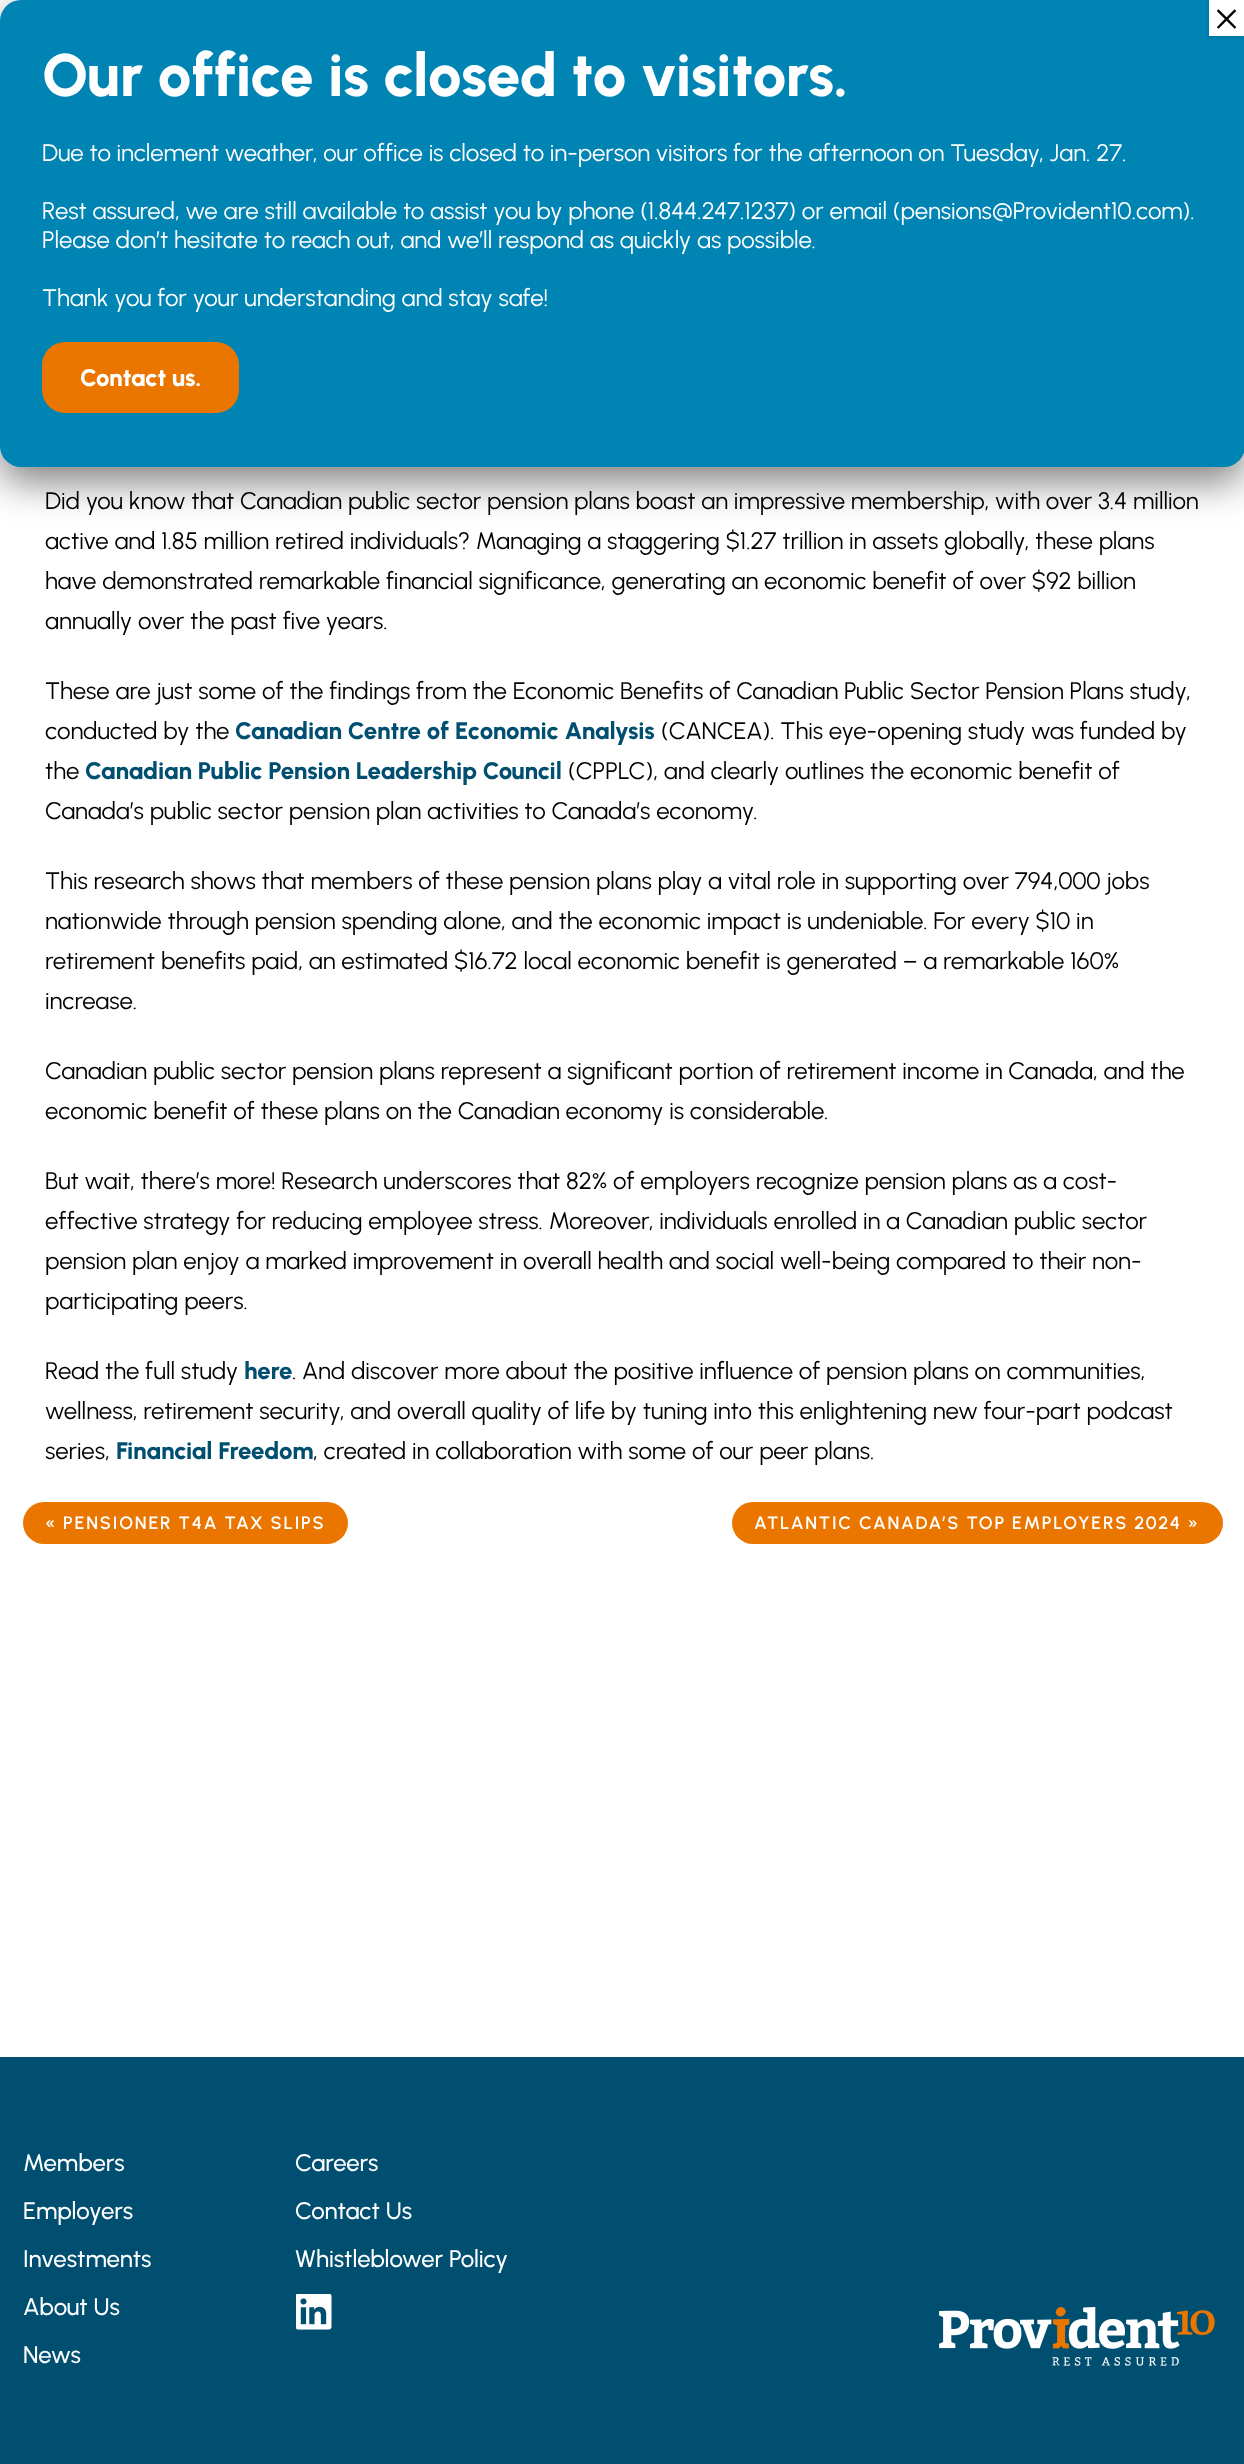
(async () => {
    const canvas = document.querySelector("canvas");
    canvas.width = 1244;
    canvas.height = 2464;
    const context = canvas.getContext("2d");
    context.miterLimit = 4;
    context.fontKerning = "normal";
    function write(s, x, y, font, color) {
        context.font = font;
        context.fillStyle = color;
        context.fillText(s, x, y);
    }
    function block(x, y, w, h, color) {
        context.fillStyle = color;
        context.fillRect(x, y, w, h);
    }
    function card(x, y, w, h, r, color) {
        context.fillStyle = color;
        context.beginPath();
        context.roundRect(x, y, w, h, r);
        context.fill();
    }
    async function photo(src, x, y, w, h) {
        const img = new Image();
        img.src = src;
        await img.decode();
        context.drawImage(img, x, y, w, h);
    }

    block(0, 0, 1244, 2464, "rgb(255, 255, 255)");
    context.fillStyle = "rgba(2, 2, 2, 0.5)";
    context.filter = "blur(19px)";
    context.beginPath();
    context.roundRect(0, 15, 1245, 467, 21);
    context.fill();
    context.filter = "none";
    card(0, 0, 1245, 467, 21, "rgb(0, 132, 179)");
    context.fillStyle = "rgba(2, 2, 2, 0.1)";
    context.filter = "blur(1px)";
    context.beginPath();
    context.rect(1208, 2, 36, 36);
    context.fill();
    context.filter = "none";
    block(1209, 0, 35, 36, "rgb(255, 255, 255)");
    write("×", 1213, 35, "48px Liberation Serif", "rgb(0, 0, 0)");
    write("Our office is closed to visitors.", 42, 96, "800 60px Urbanist", "rgb(255, 255, 255)");
    write("Due to inclement weather, our office is closed to in-person visitors for the afternoon on Tuesday, Jan. 27.", 42, 161, "24px Urbanist", "rgb(255, 255, 255)");
    write("Rest assured, we are still available to assist you by phone (1.844.247.1237) or email (pensions@Provident10.com).", 42, 219, "24px Urbanist", "rgb(255, 255, 255)");
    write("Please don’t hesitate to reach out, and we’ll respond as quickly as possible.", 42, 248, "24px Urbanist", "rgb(255, 255, 255)");
    write("Thank you for your understanding and stay safe!", 42, 306, "24px Urbanist", "rgb(255, 255, 255)");
    card(42, 342, 197, 71, 23, "rgb(234, 118, 0)");
    write("Contact us.", 80, 386, "800 24px Urbanist", "rgb(255, 255, 255)");
    write("Did you know that Canadian public sector pension plans boast an impressive membership, with over 3.4 million", 45, 509, "24px Urbanist", "rgb(0, 0, 0)");
    write("active and 1.85 million retired individuals? Managing a staggering $1.27 trillion in assets globally, these plans", 45, 549, "24px Urbanist", "rgb(0, 0, 0)");
    write("have demonstrated remarkable financial significance, generating an economic benefit of over $92 billion", 45, 589, "24px Urbanist", "rgb(0, 0, 0)");
    write("annually over the past five years.", 45, 629, "24px Urbanist", "rgb(0, 0, 0)");
    write("These are just some of the findings from the Economic Benefits of Canadian Public Sector Pension Plans study,", 45, 699, "24px Urbanist", "rgb(0, 0, 0)");
    write("conducted by the", 45, 739, "24px Urbanist", "rgb(0, 0, 0)");
    write("Canadian Centre of Economic Analysis", 235, 739, "800 24px Urbanist", "rgb(0, 79, 112)");
    write("(CANCEA). This eye-opening study was funded by", 661, 739, "24px Urbanist", "rgb(0, 0, 0)");
    write("the", 45, 779, "24px Urbanist", "rgb(0, 0, 0)");
    write("Canadian Public Pension Leadership Council", 85, 779, "800 24px Urbanist", "rgb(0, 79, 112)");
    write("(CPPLC), and clearly outlines the economic benefit of", 568, 779, "24px Urbanist", "rgb(0, 0, 0)");
    write("Canada’s public sector pension plan activities to Canada’s economy.", 45, 819, "24px Urbanist", "rgb(0, 0, 0)");
    write("This research shows that members of these pension plans play a vital role in supporting over 794,000 jobs", 45, 889, "24px Urbanist", "rgb(0, 0, 0)");
    write("nationwide through pension spending alone, and the economic impact is undeniable. For every $10 in", 45, 929, "24px Urbanist", "rgb(0, 0, 0)");
    write("retirement benefits paid, an estimated $16.72 local economic benefit is generated – a remarkable 160%", 45, 969, "24px Urbanist", "rgb(0, 0, 0)");
    write("increase.", 45, 1009, "24px Urbanist", "rgb(0, 0, 0)");
    write("Canadian public sector pension plans represent a significant portion of retirement income in Canada, and the", 45, 1079, "24px Urbanist", "rgb(0, 0, 0)");
    write("economic benefit of these plans on the Canadian economy is considerable.", 45, 1119, "24px Urbanist", "rgb(0, 0, 0)");
    write("But wait, there’s more! Research underscores that 82% of employers recognize pension plans as a cost-", 45, 1189, "24px Urbanist", "rgb(0, 0, 0)");
    write("effective strategy for reducing employee stress. Moreover, individuals enrolled in a Canadian public sector", 45, 1229, "24px Urbanist", "rgb(0, 0, 0)");
    write("pension plan enjoy a marked improvement in overall health and social well-being compared to their non-", 45, 1269, "24px Urbanist", "rgb(0, 0, 0)");
    write("participating peers.", 45, 1309, "24px Urbanist", "rgb(0, 0, 0)");
    write("Read the full study", 45, 1379, "24px Urbanist", "rgb(0, 0, 0)");
    write("here", 244, 1379, "800 24px Urbanist", "rgb(0, 79, 112)");
    write(". And discover more about the positive influence of pension plans on communities,", 292, 1379, "24px Urbanist", "rgb(0, 0, 0)");
    write("wellness, retirement security, and overall quality of life by tuning into this enlightening new four-part podcast", 45, 1419, "24px Urbanist", "rgb(0, 0, 0)");
    write("series,", 45, 1459, "24px Urbanist", "rgb(0, 0, 0)");
    write("Financial Freedom", 116, 1459, "800 24px Urbanist", "rgb(0, 79, 112)");
    write(", created in collaboration with some of our peer plans.", 313, 1459, "24px Urbanist", "rgb(0, 0, 0)");
    card(23, 1502, 325, 42, 21, "rgb(234, 118, 0)");
    context.letterSpacing = "1.8px";
    write("« PENSIONER T4A TAX SLIPS", 45, 1529, "600 18px Urbanist", "rgb(255, 255, 255)");
    card(732, 1502, 491, 42, 21, "rgb(234, 118, 0)");
    write("ATLANTIC CANADA’S TOP EMPLOYERS 2024 »", 754, 1529, "600 18px Urbanist", "rgb(255, 255, 255)");
    block(0, 2057, 1244, 407, "rgb(0, 79, 112)");
    context.letterSpacing = "0px";
    write("Members", 23, 2171, "500 24px Urbanist", "rgb(255, 255, 255)");
    write("Careers", 295, 2171, "500 24px Urbanist", "rgb(255, 255, 255)");
    write("Employers", 23, 2219, "500 24px Urbanist", "rgb(255, 255, 255)");
    write("Contact Us", 295, 2219, "500 24px Urbanist", "rgb(255, 255, 255)");
    write("Investments", 23, 2267, "500 24px Urbanist", "rgb(255, 255, 255)");
    write("Whistleblower Policy", 295, 2267, "500 24px Urbanist", "rgb(255, 255, 255)");
    write("About Us", 23, 2315, "500 24px Urbanist", "rgb(255, 255, 255)");
    await photo("media/1.png", 296, 2294, 36, 36);
    write("News", 23, 2363, "500 24px Urbanist", "rgb(255, 255, 255)");
    await photo("media/2.png", 939, 2307, 276, 59);
})();
